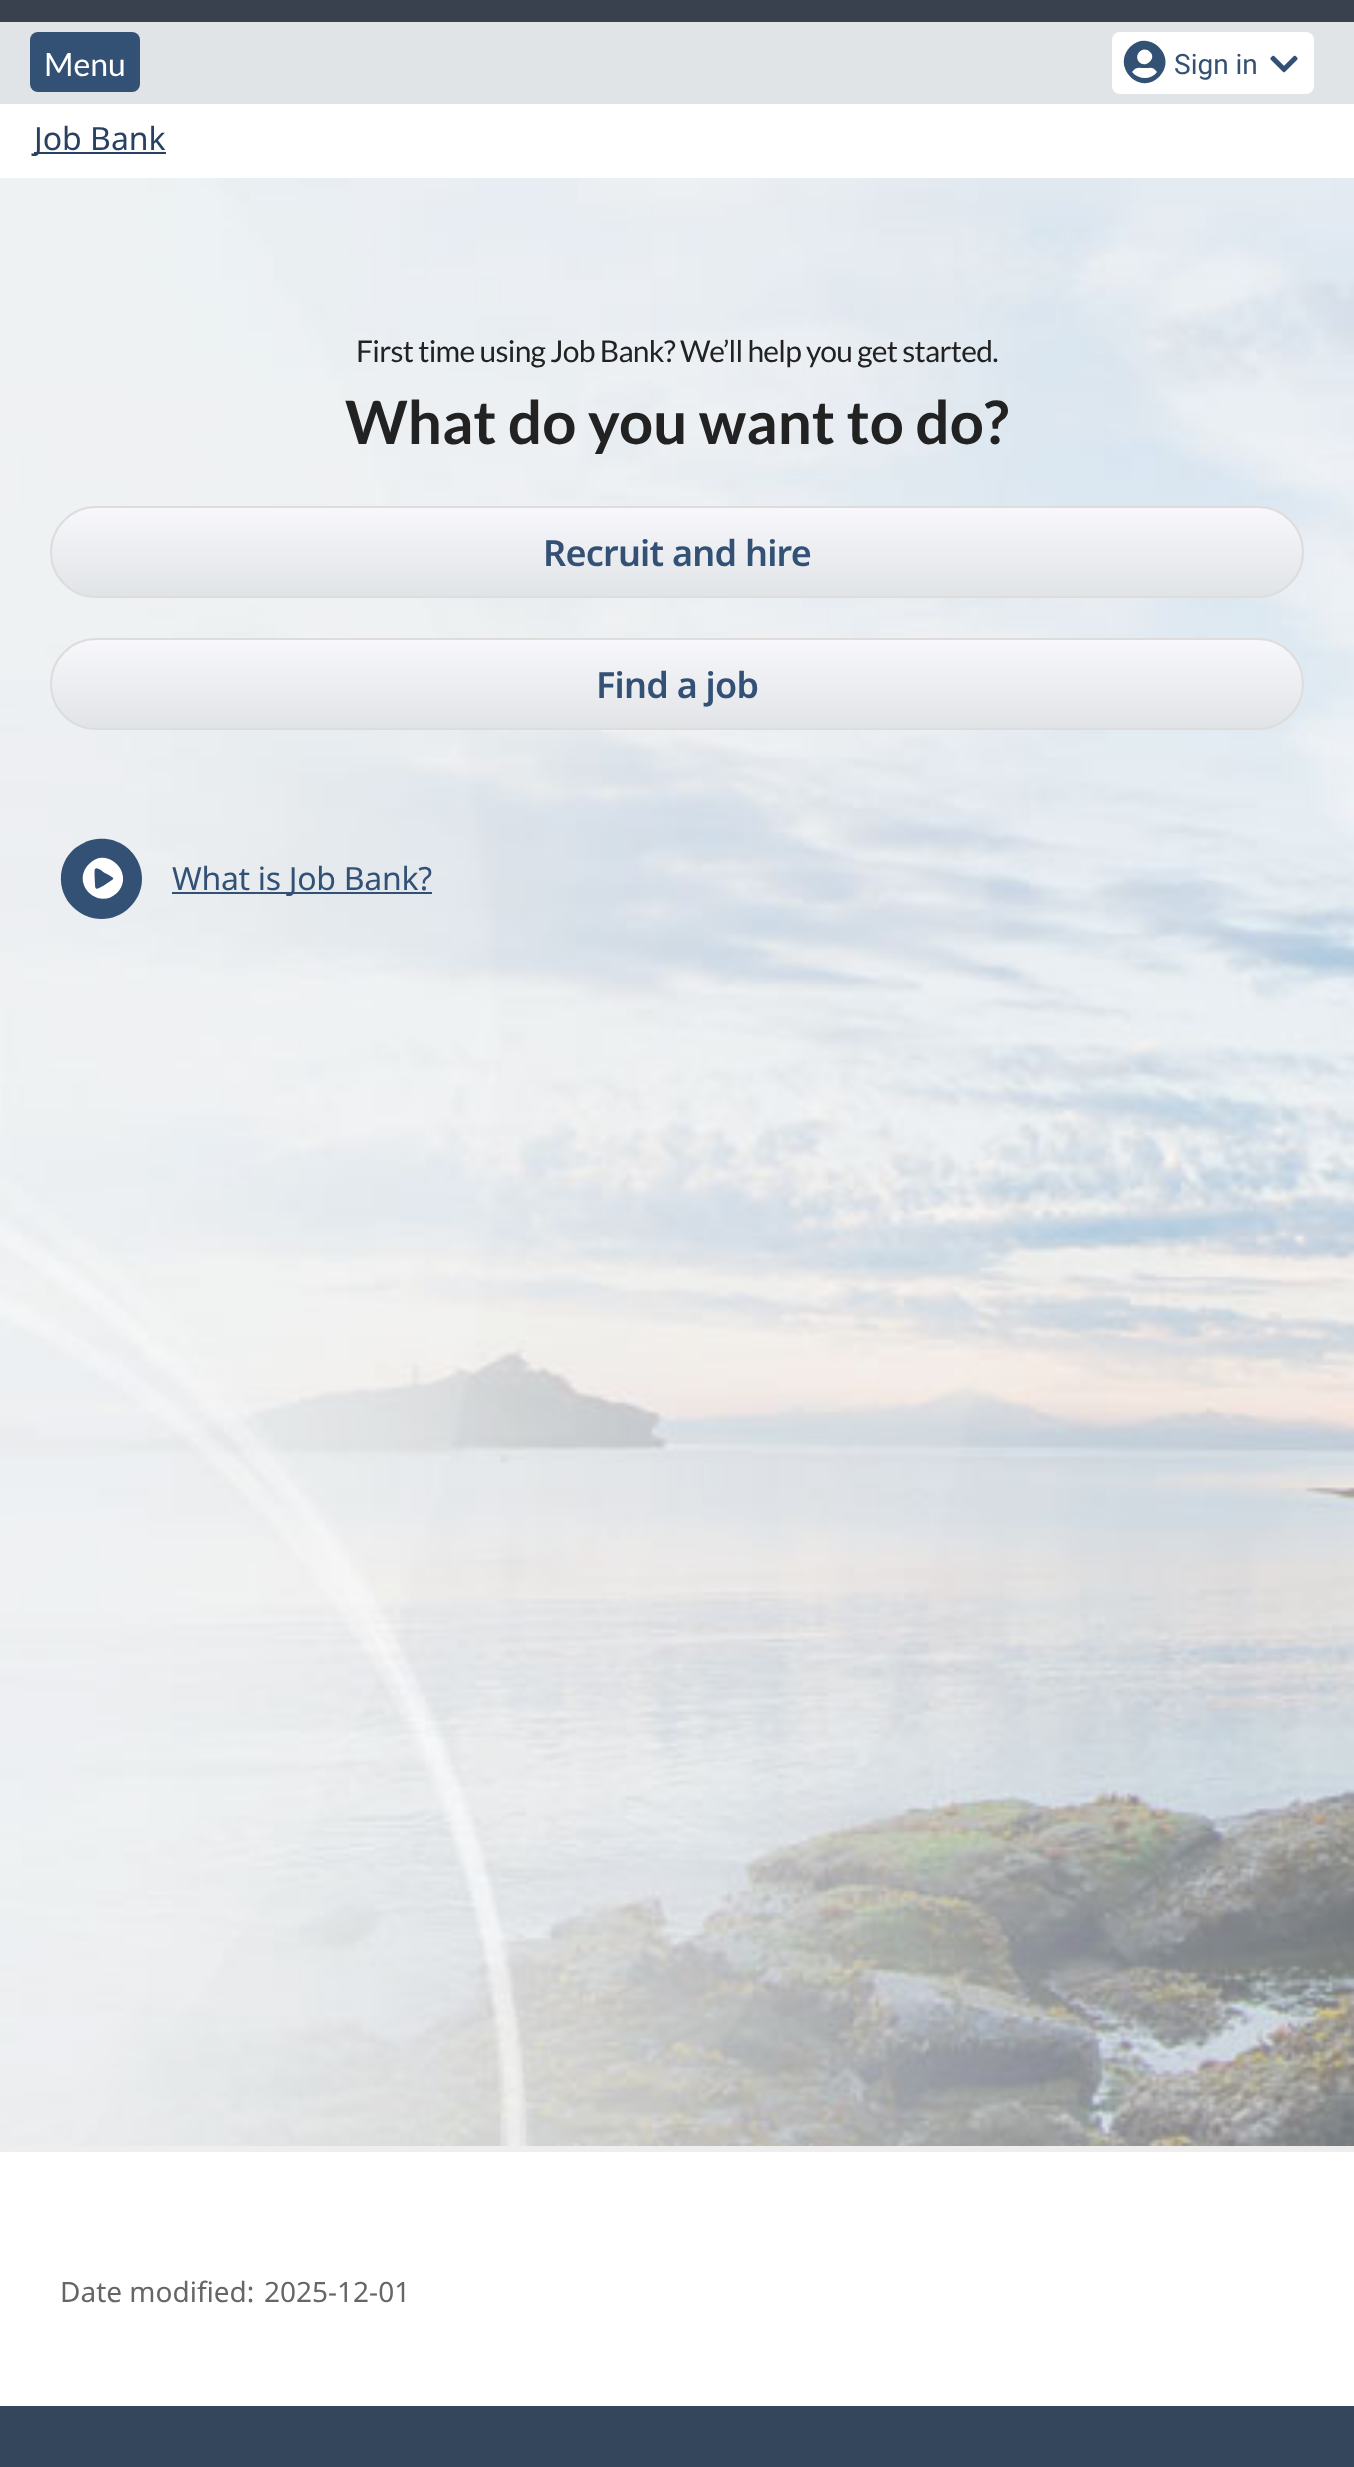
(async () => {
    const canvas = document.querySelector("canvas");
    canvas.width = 1354;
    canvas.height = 2467;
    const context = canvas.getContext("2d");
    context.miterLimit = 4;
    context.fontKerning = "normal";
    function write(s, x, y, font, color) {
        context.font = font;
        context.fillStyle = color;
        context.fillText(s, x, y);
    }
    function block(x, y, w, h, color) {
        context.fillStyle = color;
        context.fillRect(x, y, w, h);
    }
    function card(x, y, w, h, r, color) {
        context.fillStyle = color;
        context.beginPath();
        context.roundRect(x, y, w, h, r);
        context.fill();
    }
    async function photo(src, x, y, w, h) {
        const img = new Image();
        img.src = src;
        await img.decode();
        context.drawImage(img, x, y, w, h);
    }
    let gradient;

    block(0, 0, 1354, 2467, "rgb(255, 255, 255)");
    block(0, 0, 1354, 22, "rgb(56, 65, 77)");
    block(0, 22, 1354, 82, "rgb(225, 228, 231)");
    card(30, 32, 110, 60, 8, "rgb(51, 80, 117)");
    write("Menu", 44, 76, "32px Lato", "rgb(255, 255, 255)");
    card(1112, 32, 202, 62, 8, "rgb(255, 255, 255)");
    context.fillStyle = "rgb(51, 80, 117)";
    context.beginPath();
    context.moveTo(1130, 47);
    context.bezierCurveTo(1149, 28, 1179, 57, 1159, 77);
    context.bezierCurveTo(1140, 96, 1111, 67, 1130, 47);
    context.closePath();
    context.moveTo(1150, 52);
    context.bezierCurveTo(1143, 45, 1133, 55, 1139, 62);
    context.bezierCurveTo(1146, 69, 1157, 58, 1150, 52);
    context.closePath();
    context.moveTo(1132, 72);
    context.bezierCurveTo(1139, 80, 1151, 80, 1157, 72);
    context.bezierCurveTo(1153, 66, 1150, 68, 1145, 68);
    context.bezierCurveTo(1140, 68, 1136, 66, 1132, 72);
    context.closePath();
    context.fill();
    write("Sign in", 1174, 74, "28px Roboto", "rgb(51, 80, 117)");
    await photo("media/1.png", 1270, 55, 28, 18);
    block(34, 152, 132, 2, "rgb(40, 65, 98)");
    write("Job Bank", 34, 150, "32px Noto Sans", "rgb(40, 65, 98)");
    await photo("media/2.png", 0, 178, 1354, 1968);
    block(0, 2146, 1354, 6, "rgb(238, 238, 238)");
    context.letterSpacing = "-0.75px";
    write("First time using Job Bank? We’ll help you get started.", 356, 362, "30px Lato", "rgb(34, 34, 34)");
    context.letterSpacing = "0px";
    write("What do you want to do?", 345, 444, "bold 60px Lato", "rgb(34, 34, 34)");
    context.save();
    context.beginPath();
    context.roundRect(50, 506, 1254, 92, 46);
    context.clip();
    gradient = context.createLinearGradient(677, 508, 677, 596);
    gradient.addColorStop(0, "rgb(247, 247, 252)");
    gradient.addColorStop(1, "rgb(225, 228, 231)");
    context.fillStyle = gradient;
    context.fillRect(50, 508, 1254, 88);
    context.restore();
    context.beginPath();
    context.roundRect(51, 507, 1252, 90, 45);
    context.strokeStyle = "rgb(221, 221, 221)";
    context.lineWidth = 2;
    context.stroke();
    context.letterSpacing = "-0.75px";
    write("Recruit and hire", 543, 566, "600 36px Noto Sans", "rgb(51, 80, 117)");
    context.save();
    context.beginPath();
    context.roundRect(50, 638, 1254, 92, 46);
    context.clip();
    gradient = context.createLinearGradient(677, 640, 677, 728);
    gradient.addColorStop(0, "rgb(247, 247, 252)");
    gradient.addColorStop(1, "rgb(225, 228, 231)");
    context.fillStyle = gradient;
    context.fillRect(50, 640, 1254, 88);
    context.restore();
    context.beginPath();
    context.roundRect(51, 639, 1252, 90, 45);
    context.stroke();
    write("Find a job", 596, 698, "600 36px Noto Sans", "rgb(51, 80, 117)");
    context.beginPath();
    context.moveTo(73, 850);
    context.bezierCurveTo(80, 844, 88, 840, 97, 839);
    context.bezierCurveTo(135, 835, 157, 880, 130, 907);
    context.bezierCurveTo(103, 934, 58, 912, 61, 875);
    context.bezierCurveTo(62, 865, 66, 857, 73, 850);
    context.closePath();
    context.fill();
    context.fillStyle = "rgb(255, 255, 255)";
    context.beginPath();
    context.moveTo(89, 864);
    context.bezierCurveTo(107, 845, 136, 874, 117, 893);
    context.bezierCurveTo(98, 911, 70, 883, 89, 864);
    context.closePath();
    context.moveTo(112, 880);
    context.bezierCurveTo(116, 878, 110, 876, 105, 873);
    context.bezierCurveTo(103, 872, 97, 866, 95, 869);
    context.bezierCurveTo(94, 870, 95, 882, 95, 884);
    context.bezierCurveTo(95, 891, 97, 889, 103, 886);
    context.closePath();
    context.fill();
    block(172, 892, 260, 2, "rgb(51, 80, 117)");
    context.letterSpacing = "-0.3px";
    write("What is Job Bank?", 172, 890, "32px Noto Sans", "rgb(51, 80, 117)");
    context.letterSpacing = "0px";
    write("Date modified:", 60, 2302, "28px Noto Sans", "rgb(102, 102, 102)");
    write("2025-12-01", 264, 2302, "28px Noto Sans", "rgb(102, 102, 102)");
    block(0, 2406, 1354, 61, "rgb(51, 70, 92)");
})();
